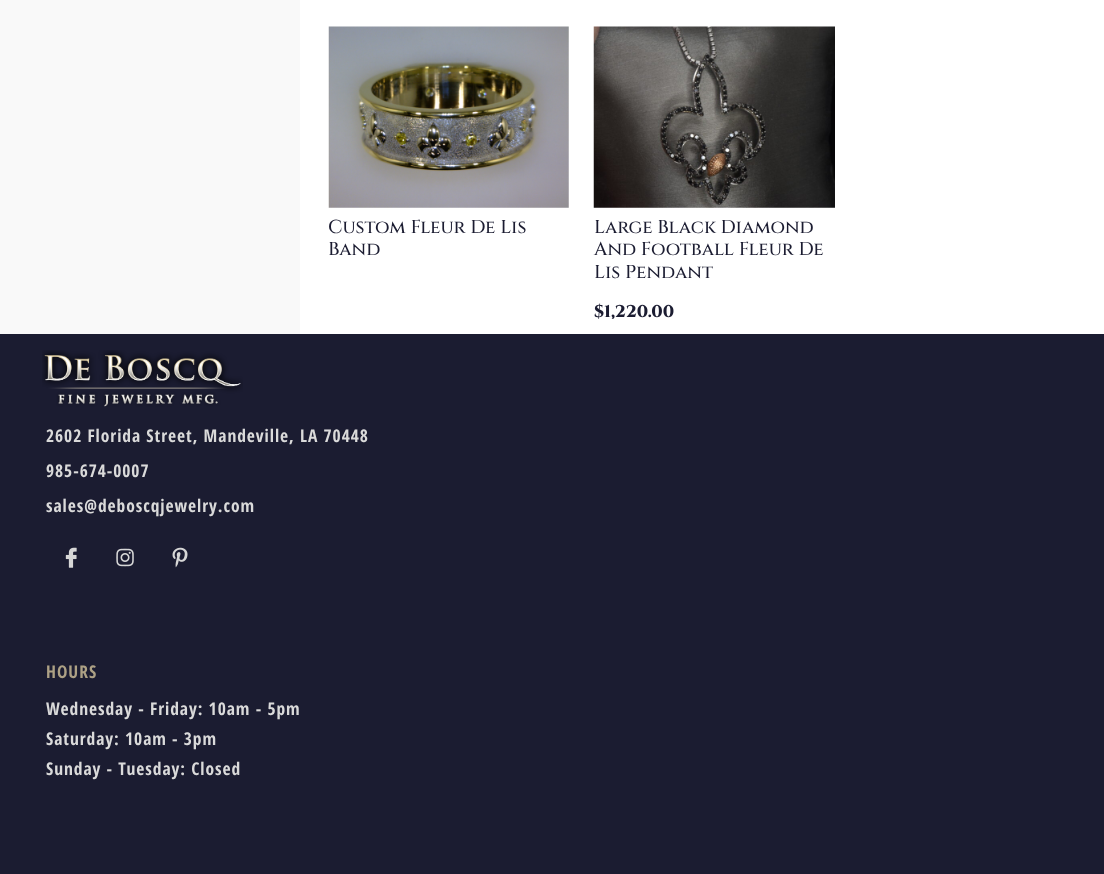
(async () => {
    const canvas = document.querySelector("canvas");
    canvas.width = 1104;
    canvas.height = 874;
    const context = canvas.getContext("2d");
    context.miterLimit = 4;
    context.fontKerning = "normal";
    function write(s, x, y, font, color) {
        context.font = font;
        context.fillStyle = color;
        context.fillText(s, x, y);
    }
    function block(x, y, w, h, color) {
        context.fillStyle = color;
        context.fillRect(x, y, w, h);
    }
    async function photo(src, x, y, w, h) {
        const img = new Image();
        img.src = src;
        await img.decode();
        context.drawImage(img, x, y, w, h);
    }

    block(0, 0, 1104, 874, "rgb(255, 255, 255)");
    block(0, 0, 300, 334, "rgb(249, 249, 249)");
    await photo("media/1.png", 328, 26, 241, 182);
    write("Custom Fleur De Lis", 328, 233, "500 18.75px Cinzel", "rgb(27, 28, 49)");
    write("Band", 328, 255, "500 18.75px Cinzel", "rgb(27, 28, 49)");
    await photo("media/2.png", 593, 26, 242, 182);
    write("Large Black Diamond", 594, 233, "500 18.75px Cinzel", "rgb(27, 28, 49)");
    write("And Football Fleur De", 594, 255, "500 18.75px Cinzel", "rgb(27, 28, 49)");
    write("Lis Pendant", 594, 278, "500 18.75px Cinzel", "rgb(27, 28, 49)");
    write("$1,220.00", 594, 317, "800 17px Cinzel", "rgb(27, 28, 49)");
    block(0, 334, 1104, 540, "rgb(27, 28, 49)");
    await photo("media/3.png", 42, 350, 201, 57);
    context.letterSpacing = "0.95px";
    write("2602 Florida Street, Mandeville, LA 70448", 46, 442, "bold 17.5px Open Sans Condensed", "rgb(218, 218, 218)");
    write("985-674-0007", 46, 477, "bold 17.5px Open Sans Condensed", "rgb(218, 218, 218)");
    write("sales@deboscqjewelry.com", 46, 512, "bold 17.5px Open Sans Condensed", "rgb(218, 218, 218)");
    await photo("media/4.png", 65, 547, 12, 21);
    await photo("media/5.png", 116, 548, 18, 19);
    await photo("media/6.png", 172, 547, 16, 21);
    context.letterSpacing = "1px";
    write("HOURS", 46, 678, "bold 17.5px Open Sans Condensed", "rgb(173, 161, 133)");
    context.letterSpacing = "0.95px";
    write("Wednesday - Friday: 10am - 5pm", 46, 715, "bold 17.5px Open Sans Condensed", "rgb(218, 218, 218)");
    write("Saturday: 10am - 3pm", 46, 745, "bold 17.5px Open Sans Condensed", "rgb(218, 218, 218)");
    write("Sunday - Tuesday: Closed", 46, 775, "bold 17.5px Open Sans Condensed", "rgb(218, 218, 218)");
})();
